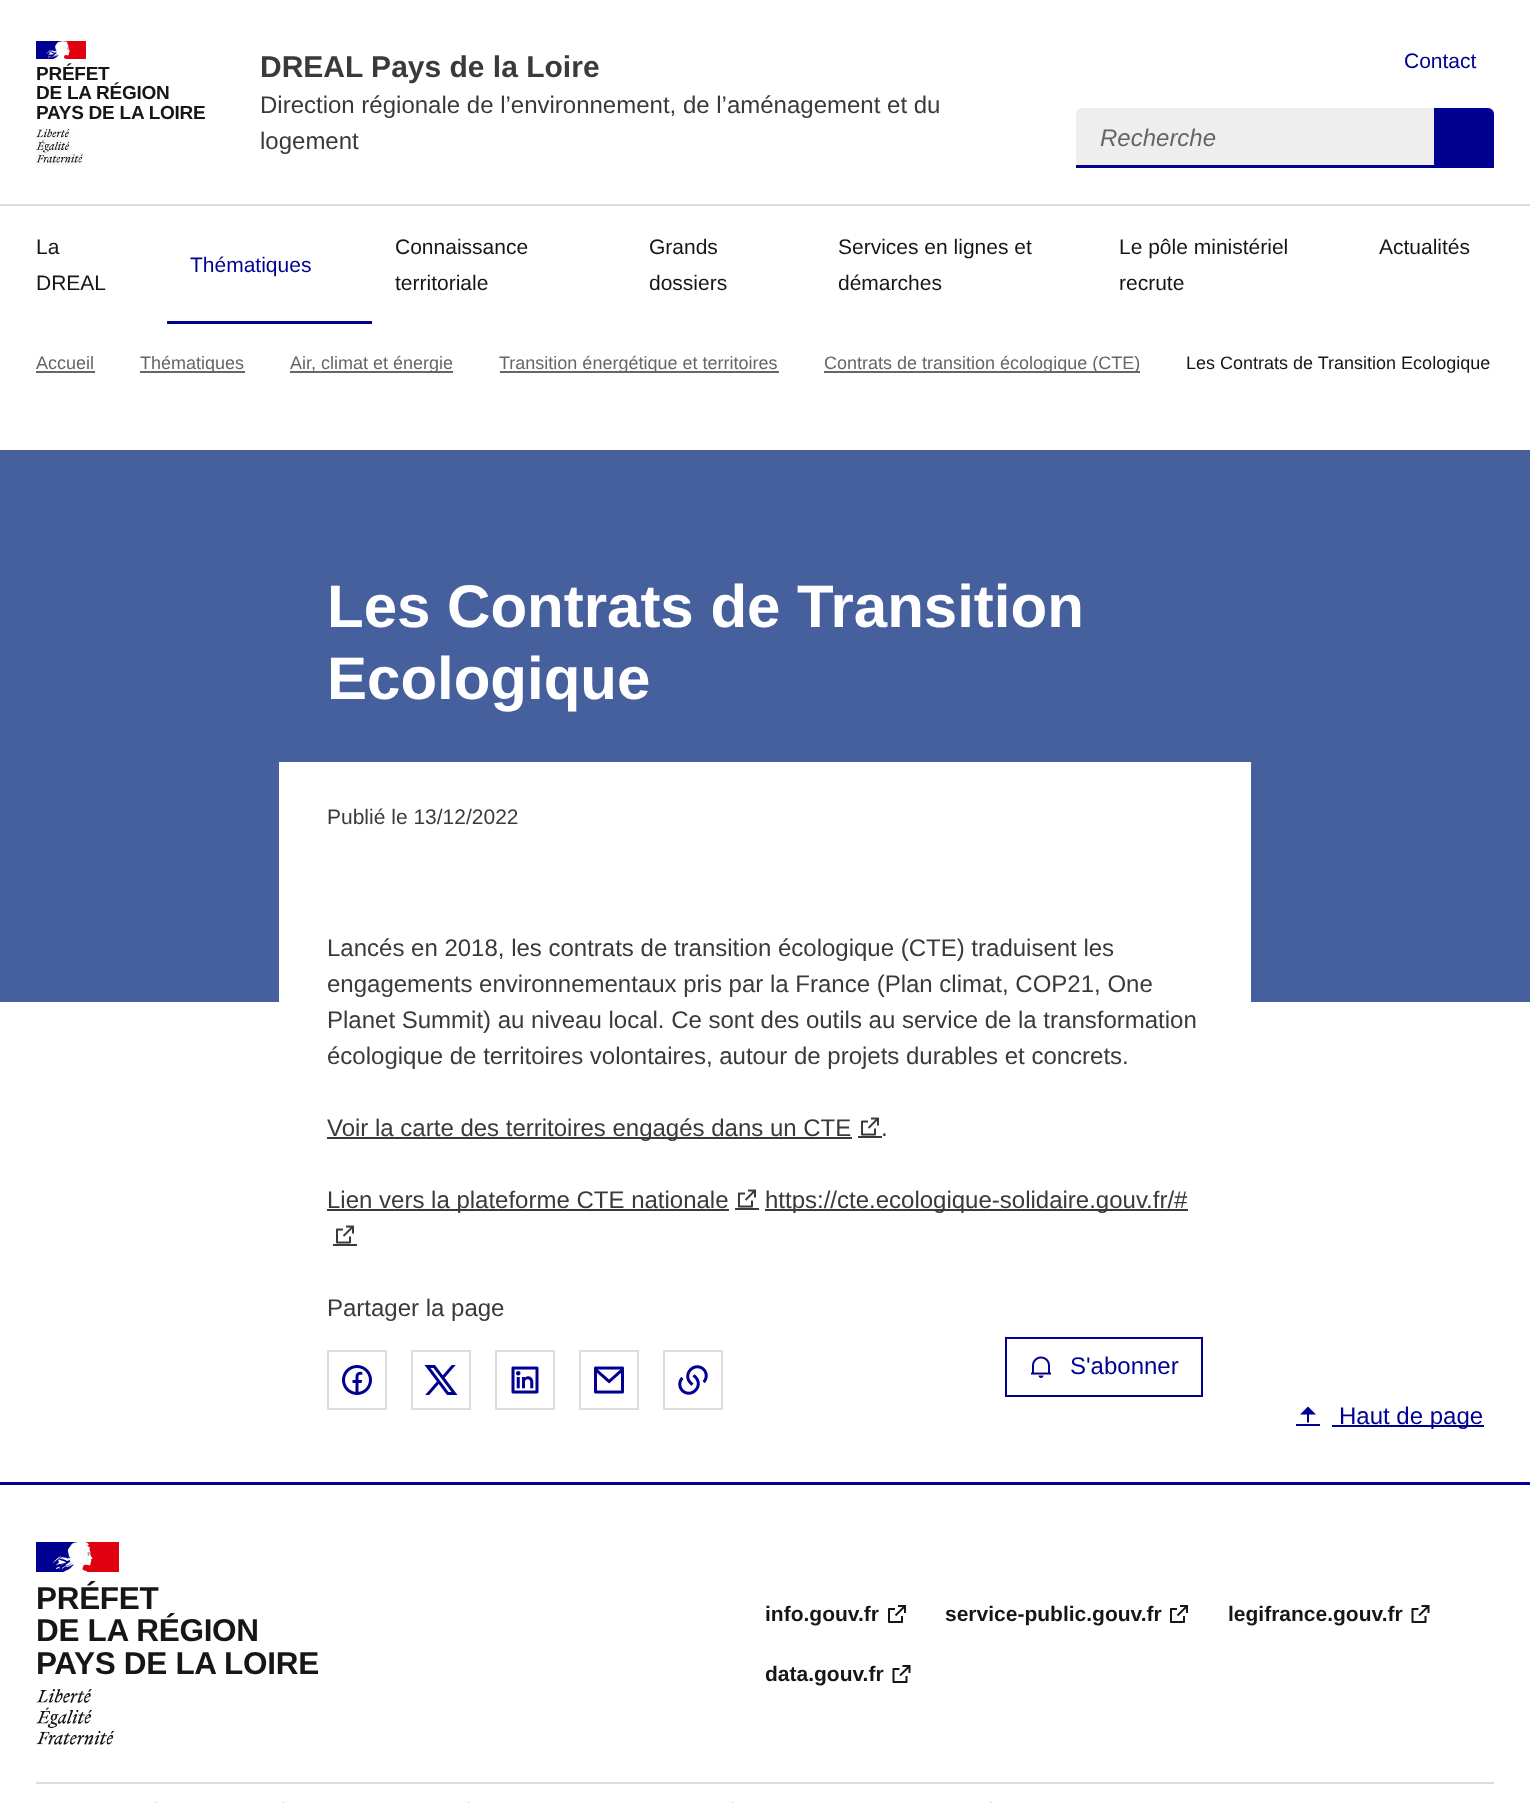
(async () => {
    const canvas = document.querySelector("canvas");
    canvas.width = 1530;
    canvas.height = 1803;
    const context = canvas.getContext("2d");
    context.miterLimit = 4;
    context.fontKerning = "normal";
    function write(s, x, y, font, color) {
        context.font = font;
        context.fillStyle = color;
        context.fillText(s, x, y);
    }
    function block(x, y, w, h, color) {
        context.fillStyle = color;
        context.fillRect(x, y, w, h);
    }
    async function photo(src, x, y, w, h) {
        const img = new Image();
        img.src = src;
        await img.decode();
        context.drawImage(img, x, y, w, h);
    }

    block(0, 0, 1530, 1803, "rgb(255, 255, 255)");
    block(36, 41, 26, 18, "rgb(0, 0, 145)");
    block(62, 41, 24, 18, "rgb(225, 0, 15)");
    await photo("media/1.png", 46, 41, 24, 18);
    context.letterSpacing = "-0.25px";
    write("PRÉFET", 36, 80, "bold 19px Liberation Sans", "rgb(22, 22, 22)");
    write("DE LA RÉGION", 36, 99, "bold 19px Liberation Sans", "rgb(22, 22, 22)");
    write("PAYS DE LA LOIRE", 36, 119, "bold 19px Liberation Sans", "rgb(22, 22, 22)");
    await photo("media/2.png", 36, 129, 47, 36);
    context.letterSpacing = "0px";
    write("DREAL Pays de la Loire", 260, 77, "bold 30px Liberation Sans", "rgb(58, 58, 58)");
    write("Direction régionale de l’environnement, de l’aménagement et du", 260, 113, "24px Liberation Sans", "rgb(58, 58, 58)");
    write("logement", 260, 149, "24px Liberation Sans", "rgb(58, 58, 58)");
    write("Contact", 1404, 68, "21px Liberation Sans", "rgb(0, 0, 145)");
    context.fillStyle = "rgb(238, 238, 238)";
    context.beginPath();
    context.roundRect(1076, 108, 358, 60, [6, 0, 0, 0]);
    context.fill();
    block(1076, 165, 358, 3, "rgb(0, 0, 145)");
    write("Recherche", 1100, 146, "italic 24px Liberation Sans", "rgb(102, 102, 102)");
    context.fillStyle = "rgb(0, 0, 145)";
    context.beginPath();
    context.roundRect(1434, 108, 60, 60, [0, 6, 0, 0]);
    context.fill();
    block(0, 204, 1530, 2, "rgb(221, 221, 221)");
    write("La", 36, 254, "21px Liberation Sans", "rgb(22, 22, 22)");
    write("DREAL", 36, 290, "21px Liberation Sans", "rgb(22, 22, 22)");
    write("Thématiques", 190, 272, "21px Liberation Sans", "rgb(0, 0, 145)");
    block(167, 321, 205, 3, "rgb(0, 0, 145)");
    write("Connaissance", 395, 254, "21px Liberation Sans", "rgb(22, 22, 22)");
    write("territoriale", 395, 290, "21px Liberation Sans", "rgb(22, 22, 22)");
    write("Grands", 649, 254, "21px Liberation Sans", "rgb(22, 22, 22)");
    write("dossiers", 649, 290, "21px Liberation Sans", "rgb(22, 22, 22)");
    write("Services en lignes et", 838, 254, "21px Liberation Sans", "rgb(22, 22, 22)");
    write("démarches", 838, 290, "21px Liberation Sans", "rgb(22, 22, 22)");
    write("Le pôle ministériel", 1119, 254, "21px Liberation Sans", "rgb(22, 22, 22)");
    write("recrute", 1119, 290, "21px Liberation Sans", "rgb(22, 22, 22)");
    write("Actualités", 1379, 254, "21px Liberation Sans", "rgb(22, 22, 22)");
    write("Accueil", 36, 369, "18px Liberation Sans", "rgb(102, 102, 102)");
    block(36, 371, 59, 2, "rgb(102, 102, 102)");
    block(140, 371, 105, 2, "rgb(102, 102, 102)");
    write("Thématiques", 140, 369, "18px Liberation Sans", "rgb(102, 102, 102)");
    block(290, 371, 163, 2, "rgb(102, 102, 102)");
    write("Air, climat et énergie", 290, 369, "18px Liberation Sans", "rgb(102, 102, 102)");
    block(500, 371, 279, 2, "rgb(102, 102, 102)");
    write("Transition énergétique et territoires", 499, 369, "18px Liberation Sans", "rgb(102, 102, 102)");
    block(824, 371, 316, 2, "rgb(102, 102, 102)");
    write("Contrats de transition écologique (CTE)", 824, 369, "18px Liberation Sans", "rgb(102, 102, 102)");
    write("Les Contrats de Transition Ecologique", 1186, 369, "18px Liberation Sans", "rgb(22, 22, 22)");
    block(0, 450, 1530, 552, "rgb(70, 95, 157)");
    write("Les Contrats de Transition", 327, 627, "bold 60px Liberation Sans", "rgb(255, 255, 255)");
    write("Ecologique", 327, 699, "bold 60px Liberation Sans", "rgb(255, 255, 255)");
    block(279, 762, 972, 240, "rgb(255, 255, 255)");
    write("Publié le 13/12/2022", 327, 824, "21px Liberation Sans", "rgb(58, 58, 58)");
    write("Lancés en 2018, les contrats de transition écologique (CTE) traduisent les", 327, 956, "24px Liberation Sans", "rgb(58, 58, 58)");
    write("engagements environnementaux pris par la France (Plan climat, COP21, One", 327, 992, "24px Liberation Sans", "rgb(58, 58, 58)");
    write("Planet Summit) au niveau local. Ce sont des outils au service de la transformation", 327, 1028, "24px Liberation Sans", "rgb(58, 58, 58)");
    write("écologique de territoires volontaires, autour de projets durables et concrets.", 327, 1064, "24px Liberation Sans", "rgb(58, 58, 58)");
    block(327, 1137, 525, 2, "rgb(58, 58, 58)");
    block(858, 1136, 24, 2, "rgb(58, 58, 58)");
    write("Voir la carte des territoires engagés dans un CTE", 327, 1136, "24px Liberation Sans", "rgb(58, 58, 58)");
    await photo("media/3.png", 861, 1117, 18, 19);
    write(".", 881, 1136, "24px Liberation Sans", "rgb(58, 58, 58)");
    block(327, 1209, 402, 2, "rgb(58, 58, 58)");
    block(735, 1208, 24, 2, "rgb(58, 58, 58)");
    write("Lien vers la plateforme CTE nationale", 327, 1208, "24px Liberation Sans", "rgb(58, 58, 58)");
    await photo("media/3.png", 738, 1189, 18, 19);
    block(765, 1209, 423, 2, "rgb(58, 58, 58)");
    block(333, 1244, 24, 2, "rgb(58, 58, 58)");
    write("https://cte.ecologique-solidaire.gouv.fr/#", 765, 1208, "24px Liberation Sans", "rgb(58, 58, 58)");
    await photo("media/3.png", 336, 1225, 18, 19);
    write("Partager la page", 327, 1316, "24px Liberation Sans", "rgb(58, 58, 58)");
    context.strokeStyle = "rgb(221, 221, 221)";
    context.lineWidth = 2;
    context.strokeRect(328, 1351, 58, 58);
    await photo("media/4.png", 342, 1365, 30, 30);
    context.strokeRect(412, 1351, 58, 58);
    await photo("media/5.png", 424, 1365, 34, 30);
    context.strokeRect(496, 1351, 58, 58);
    await photo("media/6.png", 511, 1366, 28, 28);
    context.strokeRect(580, 1351, 58, 58);
    await photo("media/7.png", 594, 1366, 30, 28);
    context.strokeRect(664, 1351, 58, 58);
    await photo("media/8.png", 678, 1365, 30, 30);
    context.strokeStyle = "rgb(0, 0, 145)";
    context.strokeRect(1006, 1338, 196, 58);
    await photo("media/9.png", 1031, 1356, 20, 22);
    write("S'abonner", 1070, 1374, "24px Liberation Sans", "rgb(0, 0, 145)");
    block(1296, 1424, 24, 2, "rgb(0, 0, 145)");
    block(1332, 1425, 152, 2, "rgb(0, 0, 145)");
    await photo("media/10.png", 1300, 1406, 16, 17);
    write("Haut de page", 1339, 1424, "24px Liberation Sans", "rgb(0, 0, 145)");
    block(0, 1482, 1530, 3, "rgb(0, 0, 145)");
    block(36, 1542, 42, 30, "rgb(0, 0, 145)");
    block(78, 1542, 41, 30, "rgb(225, 0, 15)");
    await photo("media/11.png", 52, 1542, 41, 30);
    context.letterSpacing = "-0.3px";
    write("PRÉFET", 36, 1609, "bold 31.5px Liberation Sans", "rgb(22, 22, 22)");
    write("DE LA RÉGION", 36, 1641, "bold 31.5px Liberation Sans", "rgb(22, 22, 22)");
    write("PAYS DE LA LOIRE", 36, 1674, "bold 31.5px Liberation Sans", "rgb(22, 22, 22)");
    await photo("media/12.png", 36, 1689, 78, 56);
    context.letterSpacing = "0px";
    write("info.gouv.fr", 765, 1621, "bold 21px Liberation Sans", "rgb(22, 22, 22)");
    await photo("media/13.png", 888, 1605, 18, 18);
    write("service-public.gouv.fr", 945, 1621, "bold 21px Liberation Sans", "rgb(22, 22, 22)");
    await photo("media/13.png", 1170, 1605, 18, 18);
    write("legifrance.gouv.fr", 1228, 1621, "bold 21px Liberation Sans", "rgb(22, 22, 22)");
    await photo("media/14.png", 1411, 1605, 19, 18);
    write("data.gouv.fr", 765, 1681, "bold 21px Liberation Sans", "rgb(22, 22, 22)");
    await photo("media/14.png", 892, 1665, 19, 18);
    block(36, 1782, 1458, 2, "rgb(221, 221, 221)");
    block(155, 1802, 2, 1, "rgb(221, 221, 221)");
    block(282, 1802, 2, 1, "rgb(221, 221, 221)");
    block(468, 1802, 2, 1, "rgb(221, 221, 221)");
    block(732, 1802, 2, 1, "rgb(221, 221, 221)");
    block(990, 1802, 2, 1, "rgb(221, 221, 221)");
})();
